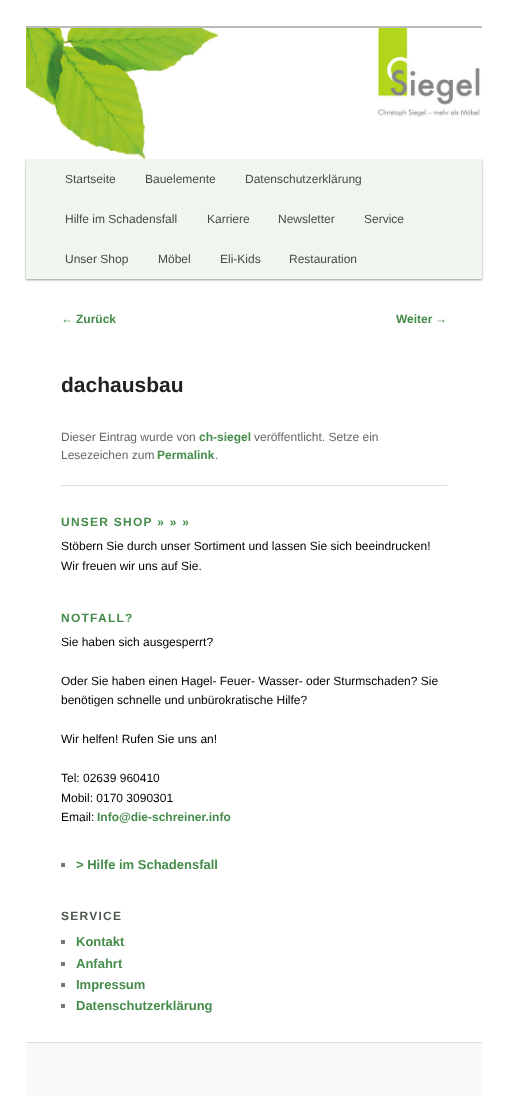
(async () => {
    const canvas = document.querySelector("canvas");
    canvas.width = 508;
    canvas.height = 1100;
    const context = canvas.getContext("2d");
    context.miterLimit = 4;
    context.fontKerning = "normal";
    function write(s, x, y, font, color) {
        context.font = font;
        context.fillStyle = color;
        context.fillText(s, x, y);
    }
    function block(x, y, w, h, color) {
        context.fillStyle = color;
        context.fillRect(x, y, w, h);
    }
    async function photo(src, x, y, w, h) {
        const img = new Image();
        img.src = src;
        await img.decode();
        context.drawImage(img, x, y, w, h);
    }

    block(0, 0, 508, 1100, "rgb(255, 255, 255)");
    block(26, 26, 456, 2, "rgb(187, 187, 187)");
    context.fillStyle = "rgba(0, 0, 0, 0.4)";
    context.filter = "blur(1px)";
    context.beginPath();
    context.rect(26, 160, 456, 120);
    context.fill();
    context.filter = "none";
    await photo("media/1.png", 26, 28, 456, 131);
    block(26, 159, 456, 120, "rgb(241, 245, 239)");
    write("Startseite", 65, 183, "12px Liberation Sans", "rgb(72, 74, 72)");
    write("Bauelemente", 145, 183, "12px Liberation Sans", "rgb(72, 74, 72)");
    write("Datenschutzerklärung", 245, 183, "12px Liberation Sans", "rgb(72, 74, 72)");
    write("Hilfe im Schadensfall", 65, 223, "12px Liberation Sans", "rgb(72, 74, 72)");
    write("Karriere", 207, 223, "12px Liberation Sans", "rgb(72, 74, 72)");
    write("Newsletter", 278, 223, "12px Liberation Sans", "rgb(72, 74, 72)");
    write("Service", 364, 223, "12px Liberation Sans", "rgb(72, 74, 72)");
    write("Unser Shop", 65, 263, "12px Liberation Sans", "rgb(72, 74, 72)");
    write("Möbel", 158, 263, "12px Liberation Sans", "rgb(72, 74, 72)");
    write("Eli-Kids", 220, 263, "12px Liberation Sans", "rgb(72, 74, 72)");
    write("Restauration", 289, 263, "12px Liberation Sans", "rgb(72, 74, 72)");
    write("←", 61, 323, "12px Liberation Sans", "rgb(69, 140, 75)");
    write("Zurück", 76, 323, "bold 12px Liberation Sans", "rgb(69, 140, 75)");
    write("Weiter", 396, 323, "bold 12px Liberation Sans", "rgb(69, 140, 75)");
    write("→", 435, 323, "12px Liberation Sans", "rgb(69, 140, 75)");
    block(61, 485, 386, 1, "rgb(221, 221, 221)");
    write("dachausbau", 61, 392, "bold 21px Liberation Sans", "rgb(34, 34, 34)");
    write("Dieser Eintrag wurde von", 61, 441, "12px Liberation Sans", "rgb(102, 102, 102)");
    write("ch-siegel", 199, 441, "bold 12px Liberation Sans", "rgb(69, 140, 75)");
    write("veröffentlicht. Setze ein", 254, 441, "12px Liberation Sans", "rgb(102, 102, 102)");
    write("Lesezeichen zum", 61, 459, "12px Liberation Sans", "rgb(102, 102, 102)");
    write("Permalink", 157, 459, "bold 12px Liberation Sans", "rgb(69, 140, 75)");
    write(".", 215, 459, "12px Liberation Sans", "rgb(102, 102, 102)");
    context.letterSpacing = "1.25px";
    write("UNSER SHOP » » »", 61, 526, "bold 12px Liberation Sans", "rgb(69, 140, 75)");
    context.letterSpacing = "0px";
    write("Stöbern Sie durch unser Sortiment und lassen Sie sich beeindrucken!", 61, 550, "12px Liberation Sans", "rgb(0, 0, 0)");
    write("Wir freuen wir uns auf Sie.", 61, 570, "12px Liberation Sans", "rgb(0, 0, 0)");
    context.letterSpacing = "1.25px";
    write("NOTFALL?", 61, 622, "bold 12px Liberation Sans", "rgb(69, 140, 75)");
    context.letterSpacing = "0px";
    write("Sie haben sich ausgesperrt?", 61, 646, "12px Liberation Sans", "rgb(0, 0, 0)");
    write("Oder Sie haben einen Hagel- Feuer- Wasser- oder Sturmschaden? Sie", 61, 685, "12px Liberation Sans", "rgb(0, 0, 0)");
    write("benötigen schnelle und unbürokratische Hilfe?", 61, 704, "12px Liberation Sans", "rgb(0, 0, 0)");
    write("Wir helfen! Rufen Sie uns an!", 61, 743, "12px Liberation Sans", "rgb(0, 0, 0)");
    write("Tel: 02639 960410", 61, 782, "12px Liberation Sans", "rgb(0, 0, 0)");
    write("Mobil: 0170 3090301", 61, 802, "12px Liberation Sans", "rgb(0, 0, 0)");
    write("Email:", 61, 821, "12px Liberation Sans", "rgb(0, 0, 0)");
    write("Info@die-schreiner.info", 97, 821, "bold 12px Liberation Sans", "rgb(69, 140, 75)");
    block(61, 863, 4, 4, "rgb(119, 119, 119)");
    write("> Hilfe im Schadensfall", 76, 869, "bold 13px Liberation Sans", "rgb(69, 140, 75)");
    context.letterSpacing = "1.25px";
    write("SERVICE", 61, 920, "bold 12px Liberation Sans", "rgb(78, 89, 79)");
    block(61, 940, 4, 4, "rgb(119, 119, 119)");
    context.letterSpacing = "0px";
    write("Kontakt", 76, 946, "bold 13px Liberation Sans", "rgb(69, 140, 75)");
    block(61, 962, 4, 4, "rgb(119, 119, 119)");
    write("Anfahrt", 76, 968, "bold 13px Liberation Sans", "rgb(69, 140, 75)");
    block(61, 983, 4, 4, "rgb(119, 119, 119)");
    write("Impressum", 76, 989, "bold 13px Liberation Sans", "rgb(69, 140, 75)");
    block(61, 1004, 4, 4, "rgb(119, 119, 119)");
    write("Datenschutzerklärung", 76, 1010, "bold 13px Liberation Sans", "rgb(69, 140, 75)");
    block(26, 1043, 456, 53, "rgb(249, 249, 249)");
    block(26, 1042, 456, 1, "rgb(221, 221, 221)");
})();
